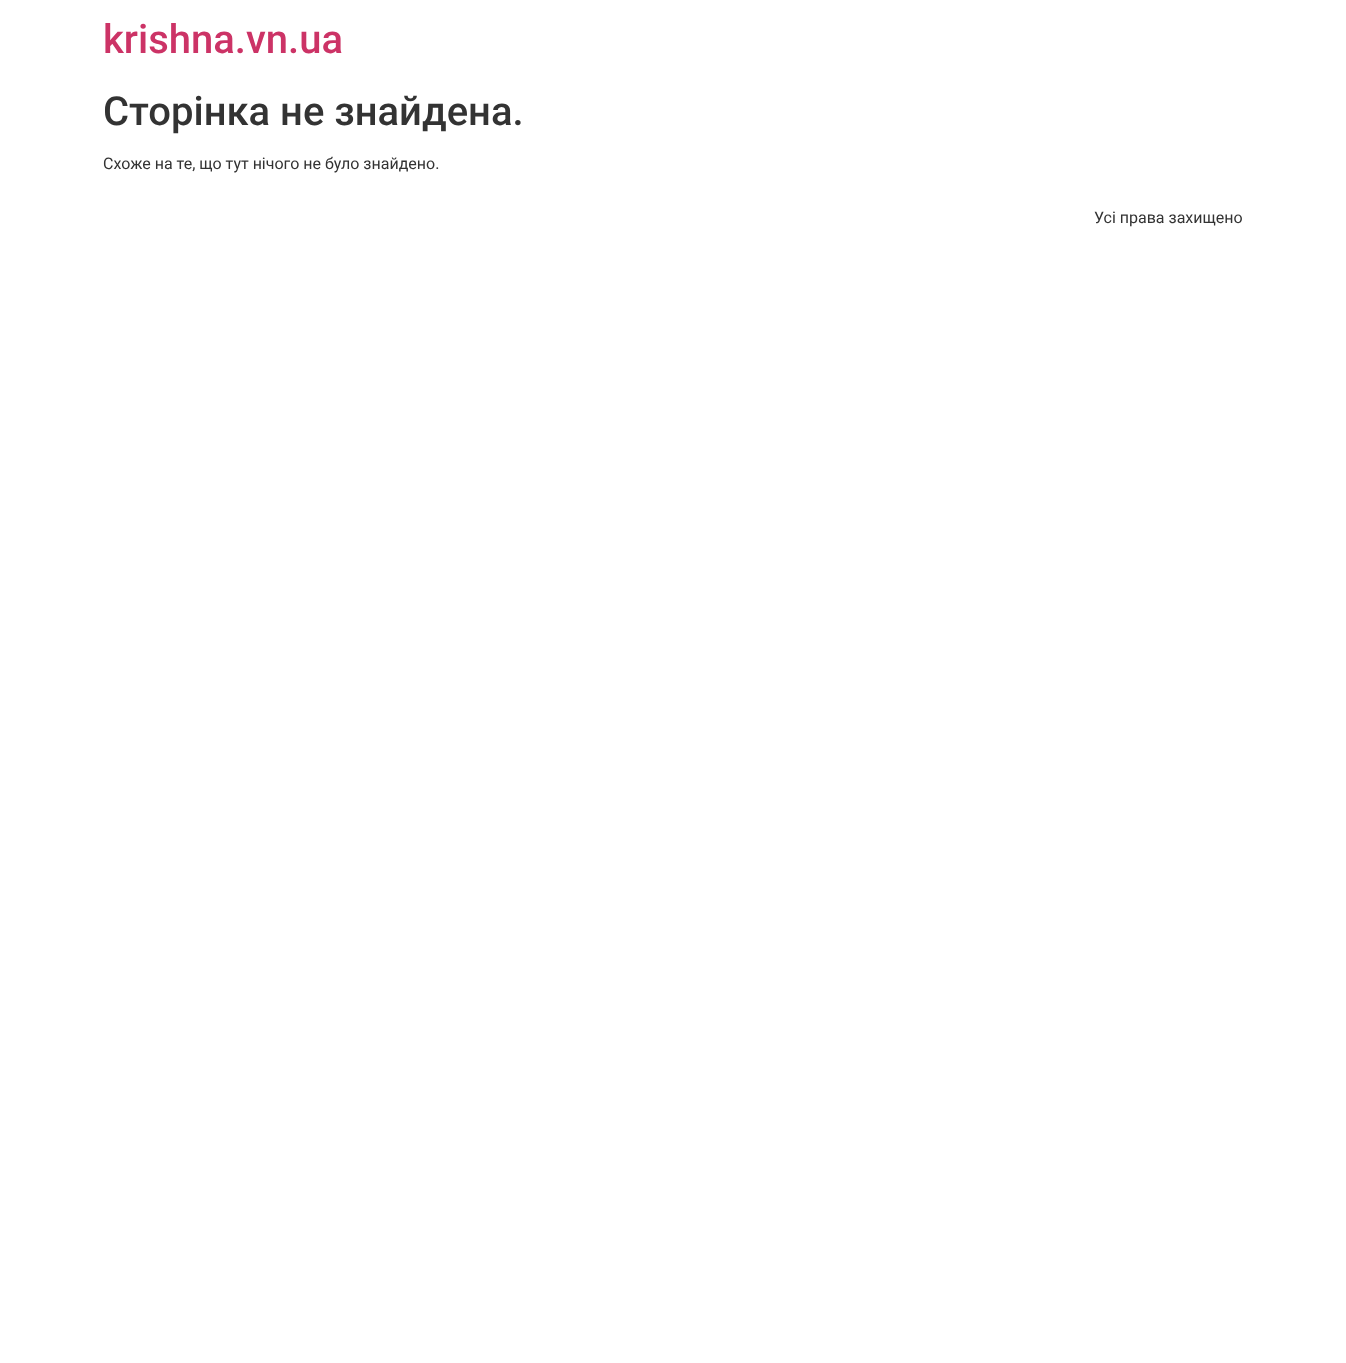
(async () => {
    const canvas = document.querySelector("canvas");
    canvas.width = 1346;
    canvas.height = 1363;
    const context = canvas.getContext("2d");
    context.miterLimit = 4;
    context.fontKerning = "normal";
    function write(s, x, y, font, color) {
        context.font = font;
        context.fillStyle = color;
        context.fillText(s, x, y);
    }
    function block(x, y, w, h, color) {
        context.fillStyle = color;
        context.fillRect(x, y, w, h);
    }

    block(0, 0, 1346, 1363, "rgb(255, 255, 255)");
    write("krishna.vn.ua", 103, 53, "500 40px Roboto", "rgb(204, 51, 102)");
    write("Сторінка не знайдена.", 103, 125, "500 40px Roboto", "rgb(51, 51, 51)");
    write("Схоже на те, що тут нічого не було знайдено.", 103, 169, "16px Roboto", "rgb(51, 51, 51)");
    write("Усі права захищено", 1094, 223, "16px Roboto", "rgb(51, 51, 51)");
})();
